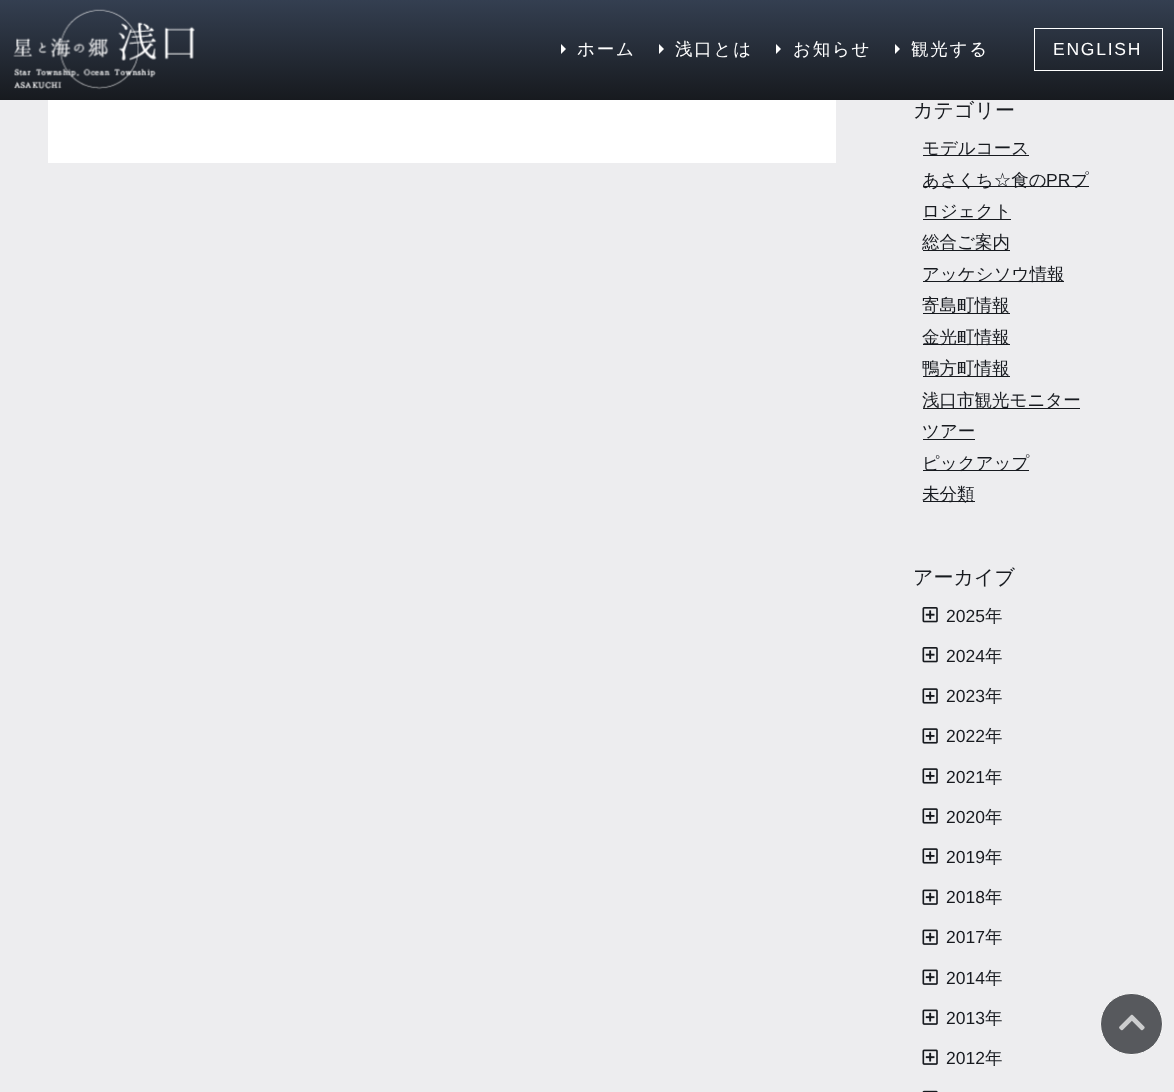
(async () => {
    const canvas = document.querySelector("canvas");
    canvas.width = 1174;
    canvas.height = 1092;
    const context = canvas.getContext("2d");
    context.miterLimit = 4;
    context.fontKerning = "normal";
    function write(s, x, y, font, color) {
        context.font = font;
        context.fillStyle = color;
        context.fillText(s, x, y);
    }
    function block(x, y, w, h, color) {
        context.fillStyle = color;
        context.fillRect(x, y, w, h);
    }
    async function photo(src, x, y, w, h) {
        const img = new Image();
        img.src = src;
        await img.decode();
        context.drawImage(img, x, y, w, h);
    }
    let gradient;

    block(0, 0, 1174, 1092, "rgb(237, 237, 239)");
    block(48, 100, 788, 63, "rgb(255, 255, 255)");
    context.beginPath();
    context.moveTo(71, 99.5);
    context.lineTo(812.5, 99.5);
    context.strokeStyle = "rgb(204, 204, 204)";
    context.lineWidth = 1.2;
    context.setLineDash([1.25, 1.25]);
    context.stroke();
    gradient = context.createLinearGradient(588, 100, 588, 0);
    gradient.addColorStop(0, "rgb(23, 26, 31)");
    gradient.addColorStop(1, "rgb(52, 63, 81)");
    context.fillStyle = gradient;
    context.fillRect(0, 0, 1174, 100);
    await photo("media/1.png", 13, 9, 182, 81);
    context.fillStyle = "rgb(255, 255, 255)";
    context.beginPath();
    context.moveTo(561, 54);
    context.lineTo(561, 44);
    context.lineTo(566, 49);
    context.closePath();
    context.fill();
    context.letterSpacing = "1.75px";
    write("ホーム", 577, 55, "500 17.5px WenQuanYi Zen Hei", "rgb(255, 255, 255)");
    context.beginPath();
    context.moveTo(659, 54);
    context.lineTo(659, 44);
    context.lineTo(664, 49);
    context.closePath();
    context.fill();
    write("浅口とは", 675, 55, "500 17.5px WenQuanYi Zen Hei", "rgb(255, 255, 255)");
    context.beginPath();
    context.moveTo(776, 54);
    context.lineTo(776, 44);
    context.lineTo(781, 49);
    context.closePath();
    context.fill();
    write("お知らせ", 793, 55, "500 17.5px WenQuanYi Zen Hei", "rgb(255, 255, 255)");
    context.beginPath();
    context.moveTo(895, 54);
    context.lineTo(895, 44);
    context.lineTo(900, 49);
    context.closePath();
    context.fill();
    write("観光する", 911, 55, "500 17.5px WenQuanYi Zen Hei", "rgb(255, 255, 255)");
    context.strokeStyle = "rgb(255, 255, 255)";
    context.lineWidth = 1;
    context.setLineDash([]);
    context.strokeRect(1034.5, 28.5, 128, 42);
    write("ENGLISH", 1053, 55, "17.5px Liberation Sans", "rgb(255, 255, 255)");
    context.letterSpacing = "0px";
    write("カテゴリー", 913, 117, "500 20px WenQuanYi Zen Hei", "rgb(23, 26, 31)");
    block(923, 155, 106, 1, "rgb(23, 26, 31)");
    write("モデルコース", 922, 154, "500 17.5px WenQuanYi Zen Hei", "rgb(23, 26, 31)");
    block(923, 186, 166, 1, "rgb(23, 26, 31)");
    write("あさくち☆食の", 922, 186, "500 17.5px WenQuanYi Zen Hei", "rgb(23, 26, 31)");
    write("PR", 1046, 186, "17.5px Liberation Sans", "rgb(23, 26, 31)");
    write("プ", 1071, 186, "500 17.5px WenQuanYi Zen Hei", "rgb(23, 26, 31)");
    block(923, 219, 88, 1, "rgb(23, 26, 31)");
    write("ロジェクト", 922, 217, "500 17.5px WenQuanYi Zen Hei", "rgb(23, 26, 31)");
    block(923, 250, 87, 1, "rgb(23, 26, 31)");
    write("総合ご案内", 922, 248, "500 17.5px WenQuanYi Zen Hei", "rgb(23, 26, 31)");
    block(923, 281, 141, 1, "rgb(23, 26, 31)");
    write("アッケシソウ情報", 922, 280, "500 17.5px WenQuanYi Zen Hei", "rgb(23, 26, 31)");
    block(923, 313, 87, 1, "rgb(23, 26, 31)");
    write("寄島町情報", 922, 311, "500 17.5px WenQuanYi Zen Hei", "rgb(23, 26, 31)");
    block(923, 344, 87, 1, "rgb(23, 26, 31)");
    write("金光町情報", 922, 343, "500 17.5px WenQuanYi Zen Hei", "rgb(23, 26, 31)");
    block(923, 376, 87, 1, "rgb(23, 26, 31)");
    write("鴨方町情報", 922, 374, "500 17.5px WenQuanYi Zen Hei", "rgb(23, 26, 31)");
    block(923, 408, 157, 1, "rgb(23, 26, 31)");
    write("浅口市観光モニター", 922, 406, "500 17.5px WenQuanYi Zen Hei", "rgb(23, 26, 31)");
    write("ツアー", 922, 437, "500 17.5px WenQuanYi Zen Hei", "rgb(23, 26, 31)");
    block(923, 439, 52, 1, "rgb(23, 26, 31)");
    block(923, 470, 106, 1, "rgb(23, 26, 31)");
    write("ピックアップ", 922, 469, "500 17.5px WenQuanYi Zen Hei", "rgb(23, 26, 31)");
    block(923, 501, 52, 1, "rgb(23, 26, 31)");
    write("未分類", 922, 500, "500 17.5px WenQuanYi Zen Hei", "rgb(23, 26, 31)");
    write("アーカイブ", 913, 584, "500 20px WenQuanYi Zen Hei", "rgb(23, 26, 31)");
    await photo("media/2.png", 922, 607, 16, 16);
    write("2025", 946, 622, "17.5px Liberation Sans", "rgb(23, 26, 31)");
    write("年", 985, 622, "500 17.5px WenQuanYi Zen Hei", "rgb(23, 26, 31)");
    await photo("media/2.png", 922, 647, 16, 16);
    write("2024", 946, 662, "17.5px Liberation Sans", "rgb(23, 26, 31)");
    write("年", 985, 662, "500 17.5px WenQuanYi Zen Hei", "rgb(23, 26, 31)");
    await photo("media/3.png", 922, 688, 16, 16);
    write("2023", 946, 702, "17.5px Liberation Sans", "rgb(23, 26, 31)");
    write("年", 985, 702, "500 17.5px WenQuanYi Zen Hei", "rgb(23, 26, 31)");
    await photo("media/3.png", 922, 728, 16, 16);
    write("2022", 946, 742, "17.5px Liberation Sans", "rgb(23, 26, 31)");
    write("年", 985, 742, "500 17.5px WenQuanYi Zen Hei", "rgb(23, 26, 31)");
    await photo("media/3.png", 922, 768, 16, 16);
    write("2021", 946, 783, "17.5px Liberation Sans", "rgb(23, 26, 31)");
    write("年", 985, 783, "500 17.5px WenQuanYi Zen Hei", "rgb(23, 26, 31)");
    await photo("media/3.png", 922, 808, 16, 16);
    write("2020", 946, 823, "17.5px Liberation Sans", "rgb(23, 26, 31)");
    write("年", 985, 823, "500 17.5px WenQuanYi Zen Hei", "rgb(23, 26, 31)");
    await photo("media/3.png", 922, 848, 16, 16);
    write("2019", 946, 863, "17.5px Liberation Sans", "rgb(23, 26, 31)");
    write("年", 985, 863, "500 17.5px WenQuanYi Zen Hei", "rgb(23, 26, 31)");
    await photo("media/4.png", 922, 889, 16, 16);
    write("2018", 946, 903, "17.5px Liberation Sans", "rgb(23, 26, 31)");
    write("年", 985, 903, "500 17.5px WenQuanYi Zen Hei", "rgb(23, 26, 31)");
    await photo("media/4.png", 922, 929, 16, 16);
    write("2017", 946, 943, "17.5px Liberation Sans", "rgb(23, 26, 31)");
    write("年", 985, 943, "500 17.5px WenQuanYi Zen Hei", "rgb(23, 26, 31)");
    await photo("media/4.png", 922, 969, 16, 16);
    write("2014", 946, 984, "17.5px Liberation Sans", "rgb(23, 26, 31)");
    write("年", 985, 984, "500 17.5px WenQuanYi Zen Hei", "rgb(23, 26, 31)");
    await photo("media/4.png", 922, 1009, 16, 16);
    write("2013", 946, 1024, "17.5px Liberation Sans", "rgb(23, 26, 31)");
    write("年", 985, 1024, "500 17.5px WenQuanYi Zen Hei", "rgb(23, 26, 31)");
    await photo("media/4.png", 922, 1049, 16, 16);
    write("2012", 946, 1064, "17.5px Liberation Sans", "rgb(23, 26, 31)");
    write("年", 985, 1064, "500 17.5px WenQuanYi Zen Hei", "rgb(23, 26, 31)");
    await photo("media/5.png", 922, 1090, 16, 2);
    context.fillStyle = "rgb(87, 89, 93)";
    context.beginPath();
    context.roundRect(1100.5, 993.5, 62, 61, 30.5);
    context.fill();
    context.strokeStyle = "rgb(250, 250, 250)";
    context.stroke();
    await photo("media/6.png", 1119, 1014, 26, 17);
})();
